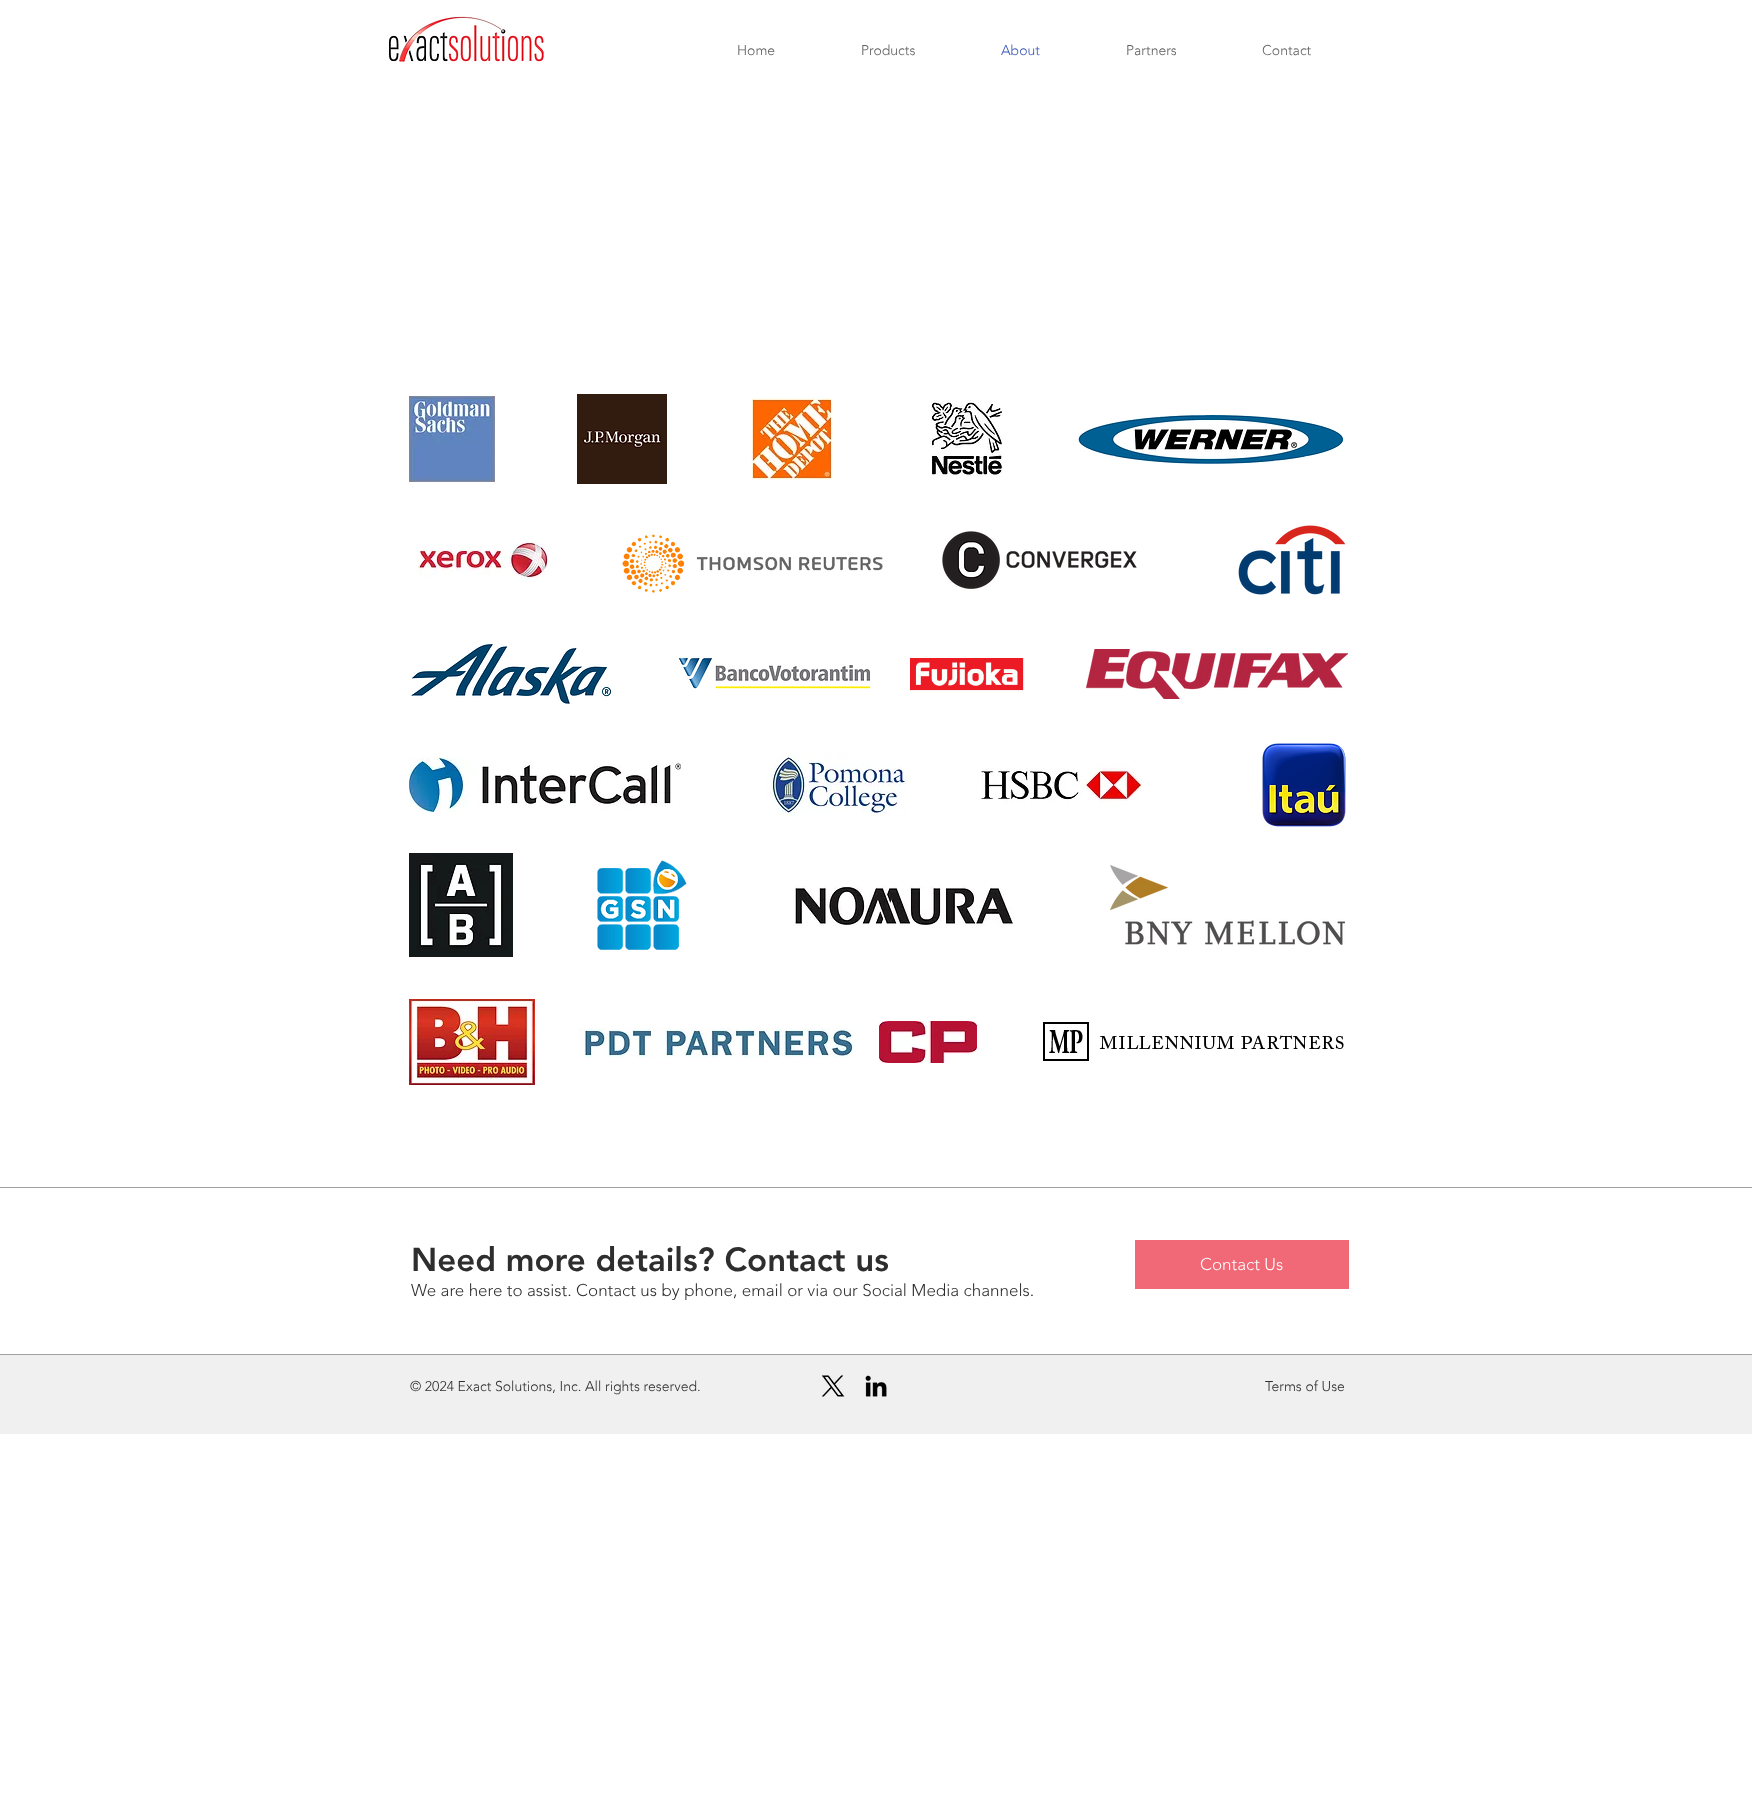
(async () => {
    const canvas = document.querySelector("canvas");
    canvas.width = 1752;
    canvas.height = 1810;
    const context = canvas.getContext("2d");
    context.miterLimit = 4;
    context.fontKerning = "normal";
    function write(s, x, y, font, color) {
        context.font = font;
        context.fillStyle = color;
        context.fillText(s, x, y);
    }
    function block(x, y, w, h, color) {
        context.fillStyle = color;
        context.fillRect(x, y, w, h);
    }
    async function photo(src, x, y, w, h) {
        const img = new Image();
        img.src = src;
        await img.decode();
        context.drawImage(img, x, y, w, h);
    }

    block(0, 0, 1752, 1810, "rgb(255, 255, 255)");
    await photo("media/1.png", 389, 16, 156, 48);
    write("Home", 737, 55, "300 14px 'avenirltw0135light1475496'", "rgb(96, 94, 94)");
    write("Products", 861, 55, "300 14px 'avenirltw0135light1475496'", "rgb(96, 94, 94)");
    write("About", 1001, 55, "300 14px 'avenirltw0135light1475496'", "rgb(59, 88, 184)");
    write("Partners", 1126, 55, "300 14px 'avenirltw0135light1475496'", "rgb(96, 94, 94)");
    write("Contact", 1262, 55, "300 14px 'avenirltw0135light1475496'", "rgb(96, 94, 94)");
    await photo("media/2.png", 409, 396, 86, 86);
    await photo("media/3.png", 577, 394, 90, 90);
    await photo("media/4.png", 751, 398, 82, 82);
    await photo("media/5.png", 931, 400, 72, 77);
    await photo("media/6.png", 1078, 415, 266, 49);
    await photo("media/7.png", 417, 541, 134, 42);
    await photo("media/8.png", 622, 534, 261, 59);
    await photo("media/9.png", 942, 531, 195, 58);
    await photo("media/10.png", 1238, 525, 108, 70);
    await photo("media/11.png", 411, 643, 200, 62);
    await photo("media/12.png", 678, 658, 193, 31);
    await photo("media/13.png", 910, 658, 114, 33);
    await photo("media/14.png", 1086, 649, 262, 50);
    await photo("media/15.png", 409, 758, 272, 54);
    await photo("media/16.png", 766, 754, 144, 62);
    await photo("media/17.png", 981, 764, 163, 40);
    await photo("media/18.png", 1262, 743, 84, 84);
    await photo("media/19.png", 409, 853, 104, 104);
    await photo("media/20.png", 597, 860, 90, 90);
    await photo("media/21.png", 794, 886, 220, 40);
    await photo("media/22.png", 1110, 865, 235, 80);
    await photo("media/23.png", 409, 999, 126, 86);
    await photo("media/24.png", 579, 1028, 276, 30);
    await photo("media/25.png", 879, 1021, 98, 42);
    await photo("media/26.png", 1043, 1022, 301, 39);
    block(0, 1187, 1752, 1, "rgb(160, 160, 159)");
    write("Need more details? Contact us", 411, 1271, "900 33px 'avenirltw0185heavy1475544'", "rgb(47, 46, 46)");
    write("We are here to assist. Contact us by phone, email or via our Social Media channels.", 411, 1296, "300 17px 'avenirltw0135light1475496'", "rgb(47, 46, 46)");
    block(1135, 1240, 214, 49, "rgb(241, 104, 118)");
    write("Contact Us", 1200, 1270, "300 17px 'avenirltw0135light1475496'", "rgb(255, 255, 255)");
    block(0, 1355, 1752, 79, "rgb(240, 240, 240)");
    block(0, 1354, 1752, 1, "rgb(160, 160, 159)");
    write("© 2024 Exact Solutions, Inc. All rights reserved.", 410, 1391, "300 14px 'avenirltw0135light1475496'", "rgb(47, 46, 46)");
    await photo("media/27.png", 821, 1375, 24, 22);
    await photo("media/28.png", 865, 1375, 22, 22);
    write("Terms of Use", 1265, 1391, "300 14px 'avenirltw0135light1475496'", "rgb(47, 46, 46)");
})();
